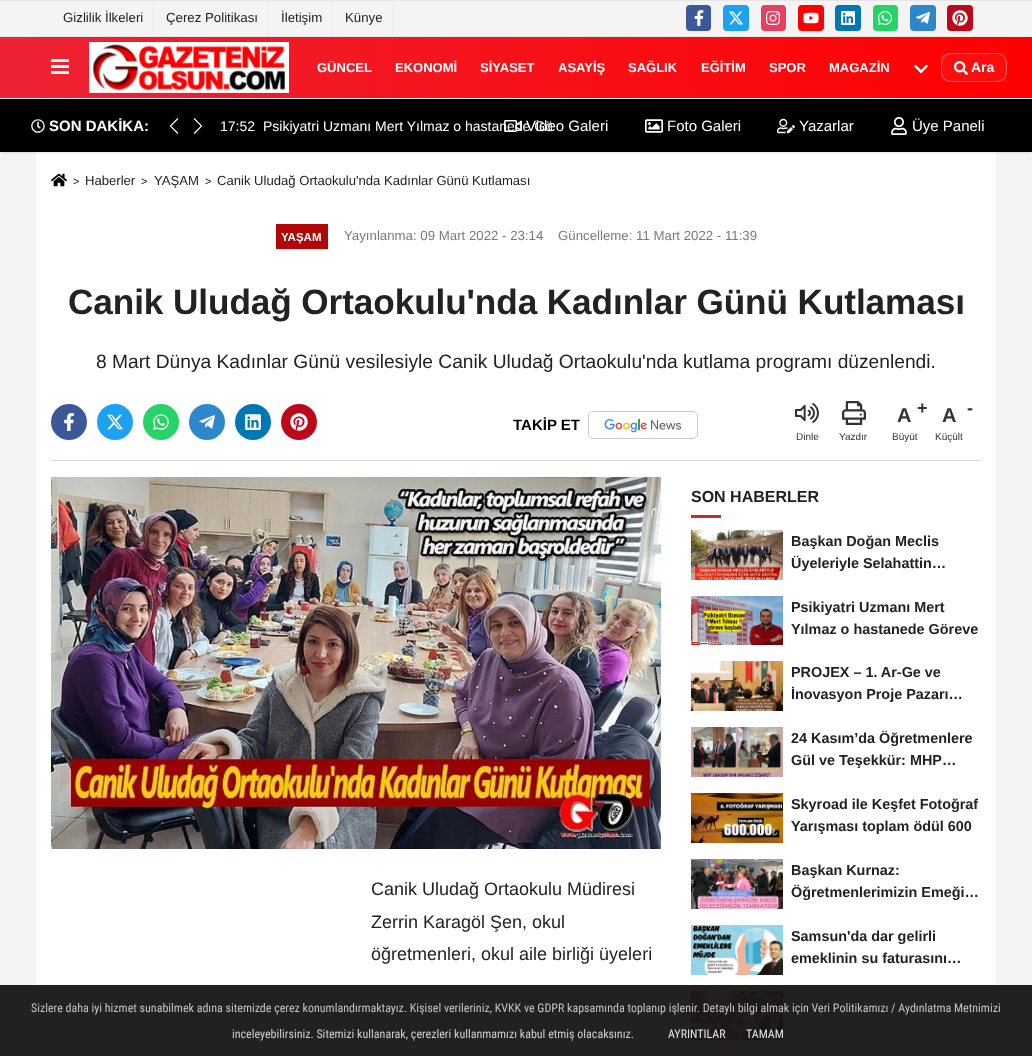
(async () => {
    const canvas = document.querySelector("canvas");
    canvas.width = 1032;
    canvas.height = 1056;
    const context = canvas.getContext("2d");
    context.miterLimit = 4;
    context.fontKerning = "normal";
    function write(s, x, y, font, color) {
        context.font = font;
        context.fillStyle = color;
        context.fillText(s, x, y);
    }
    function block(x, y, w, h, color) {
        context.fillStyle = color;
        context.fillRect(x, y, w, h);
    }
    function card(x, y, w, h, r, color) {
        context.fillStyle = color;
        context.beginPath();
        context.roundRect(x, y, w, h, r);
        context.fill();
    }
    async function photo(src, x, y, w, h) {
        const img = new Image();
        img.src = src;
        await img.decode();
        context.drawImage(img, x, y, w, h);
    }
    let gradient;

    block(0, 0, 1032, 1056, "rgb(244, 244, 244)");
    block(0, 0, 1032, 1, "rgb(230, 230, 230)");
    block(153, 1, 1, 35, "rgb(238, 238, 238)");
    write("Gizlilik İlkeleri", 63, 22, "13.25px Liberation Sans", "rgb(34, 34, 34)");
    block(268, 1, 1, 35, "rgb(238, 238, 238)");
    write("Çerez Politikası", 166, 22, "13.25px Liberation Sans", "rgb(34, 34, 34)");
    block(332, 1, 1, 35, "rgb(238, 238, 238)");
    write("İletişim", 281, 22, "13.25px Liberation Sans", "rgb(34, 34, 34)");
    block(392, 1, 1, 35, "rgb(238, 238, 238)");
    write("Künye", 345, 22, "13.25px Liberation Sans", "rgb(34, 34, 34)");
    card(686, 5, 25, 26, 4, "rgb(59, 89, 152)");
    await photo("media/1.png", 694, 10, 10, 16);
    card(723, 5, 26, 26, 4, "rgb(29, 161, 242)");
    await photo("media/2.png", 729, 11, 14, 14);
    card(761, 5, 25, 26, 4, "rgb(228, 64, 95)");
    await photo("media/3.png", 766, 11, 14, 14);
    card(798, 5, 26, 26, 4, "rgb(255, 0, 0)");
    await photo("media/4.png", 803, 12, 16, 12);
    card(835, 5, 26, 26, 4, "rgb(0, 119, 181)");
    await photo("media/5.png", 841, 11, 14, 14);
    card(873, 5, 25, 26, 4, "rgb(37, 211, 102)");
    await photo("media/6.png", 878, 11, 14, 14);
    card(910, 5, 26, 26, 4, "rgb(46, 135, 202)");
    await photo("media/7.png", 916, 12, 14, 12);
    card(947, 5, 26, 26, 4, "rgb(189, 8, 28)");
    await photo("media/8.png", 952, 10, 16, 16);
    block(0, 36, 1032, 1, "rgb(230, 230, 230)");
    block(36, 152, 960, 904, "rgb(255, 255, 255)");
    context.fillStyle = "rgba(0, 0, 0, 0.1)";
    context.filter = "blur(1px)";
    context.beginPath();
    context.rect(0, 100, 1032, 53);
    context.fill();
    context.filter = "none";
    gradient = context.createRadialGradient(1032, 37, 0, 1032, 37, 1034);
    gradient.addColorStop(0, "rgb(255, 0, 0)");
    gradient.addColorStop(1, "rgb(237, 35, 52)");
    context.fillStyle = gradient;
    context.fillRect(0, 37, 1032, 61);
    block(51, 59, 18, 3, "rgb(255, 255, 255)");
    block(51, 65, 18, 3, "rgb(255, 255, 255)");
    block(51, 71, 18, 3, "rgb(255, 255, 255)");
    await photo("media/9.png", 89, 42, 200, 51);
    write("GÜNCEL", 317, 72, "bold 13px Liberation Sans", "rgb(255, 255, 255)");
    write("EKONOMİ", 395, 72, "bold 13px Liberation Sans", "rgb(255, 255, 255)");
    write("SİYASET", 480, 72, "bold 13px Liberation Sans", "rgb(255, 255, 255)");
    write("ASAYİŞ", 558, 72, "bold 13px Liberation Sans", "rgb(255, 255, 255)");
    write("SAĞLIK", 628, 72, "bold 13px Liberation Sans", "rgb(255, 255, 255)");
    write("EĞİTİM", 701, 72, "bold 13px Liberation Sans", "rgb(255, 255, 255)");
    write("SPOR", 769, 72, "bold 13px Liberation Sans", "rgb(255, 255, 255)");
    write("MAGAZİN", 829, 72, "bold 13px Liberation Sans", "rgb(255, 255, 255)");
    await photo("media/10.png", 914, 64, 14, 10);
    block(941, 53, 66, 29, "rgba(233, 233, 233, 0.05)");
    context.beginPath();
    context.roundRect(941.5, 53.5, 65, 28, 9.5);
    context.strokeStyle = "rgba(221, 221, 221, 0.42)";
    context.stroke();
    await photo("media/11.png", 954, 61, 14, 14);
    write("Ara", 971, 72, "bold 14px Liberation Sans", "rgb(255, 255, 255)");
    block(0, 99, 1032, 53, "rgb(0, 0, 0)");
    await photo("media/12.png", 31, 119, 14, 14);
    write("SON DAKİKA:", 49, 131, "bold 15px Liberation Sans", "rgb(255, 255, 255)");
    await photo("media/13.png", 169, 118, 10, 16);
    await photo("media/14.png", 193, 118, 10, 16);
    write("17:52", 220, 131, "14px Liberation Sans", "rgb(255, 255, 255)");
    await photo("media/15.png", 504, 120, 18, 12);
    write("Video Galeri", 526, 131, "15px Liberation Sans", "rgb(255, 255, 255)");
    context.save();
    context.beginPath();
    context.rect(165, 116, 387, 20);
    context.clip();
    write("Psikiyatri Uzmanı Mert Yılmaz o hastanede Gö", 263, 131, "14px Liberation Sans", "rgb(255, 255, 255)");
    context.restore();
    await photo("media/16.png", 645, 119, 18, 14);
    write("Foto Galeri", 667, 131, "15px Liberation Sans", "rgb(255, 255, 255)");
    await photo("media/17.png", 777, 118, 18, 16);
    write("Yazarlar", 799, 131, "15px Liberation Sans", "rgb(255, 255, 255)");
    await photo("media/18.png", 891, 117, 16, 18);
    write("Üye Paneli", 912, 131, "15px Liberation Sans", "rgb(255, 255, 255)");
    await photo("media/19.png", 51, 173, 16, 14);
    write(">", 73, 185, "11px Liberation Sans", "rgb(34, 34, 34)");
    write("Haberler", 85, 185, "13.1px Liberation Sans", "rgb(34, 34, 34)");
    write(">", 141, 185, "11px Liberation Sans", "rgb(34, 34, 34)");
    write("YAŞAM", 154, 185, "13.1px Liberation Sans", "rgb(34, 34, 34)");
    write(">", 205, 185, "11px Liberation Sans", "rgb(34, 34, 34)");
    write("Canik Uludağ Ortaokulu'nda Kadınlar Günü Kutlaması", 217, 185, "13.1px Liberation Sans", "rgb(34, 34, 34)");
    block(276, 224, 52, 25, "rgb(179, 5, 5)");
    write("YAŞAM", 281, 241, "bold 11.5px Liberation Sans", "rgb(255, 255, 255)");
    write("Yayınlanma: 09 Mart 2022 - 23:14", 344, 240, "13.25px Liberation Sans", "rgb(122, 122, 122)");
    write("Güncelleme: 11 Mart 2022 - 11:39", 558, 240, "13.25px Liberation Sans", "rgb(122, 122, 122)");
    context.letterSpacing = "-0.1px";
    write("Canik Uludağ Ortaokulu'nda Kadınlar Günü Kutlaması", 68, 314, "bold 35.2px Liberation Sans", "rgb(34, 34, 34)");
    context.letterSpacing = "0px";
    write("8 Mart Dünya Kadınlar Günü vesilesiyle Canik Uludağ Ortaokulu'nda kutlama programı düzenlendi.", 96, 368, "19.2px Liberation Sans", "rgb(34, 34, 34)");
    context.fillStyle = "rgb(59, 89, 152)";
    context.beginPath();
    context.arc(69, 422, 18, 0, Math.PI * 2);
    context.fill();
    await photo("media/20.png", 64, 413, 10, 18);
    context.fillStyle = "rgb(29, 161, 242)";
    context.beginPath();
    context.arc(115, 422, 18, 0, Math.PI * 2);
    context.fill();
    await photo("media/21.png", 107, 414, 16, 16);
    context.fillStyle = "rgb(37, 211, 102)";
    context.beginPath();
    context.arc(161, 422, 18, 0, Math.PI * 2);
    context.fill();
    await photo("media/22.png", 153, 414, 16, 16);
    context.fillStyle = "rgb(46, 135, 202)";
    context.beginPath();
    context.arc(207, 422, 18, 0, Math.PI * 2);
    context.fill();
    await photo("media/23.png", 199, 415, 16, 14);
    context.fillStyle = "rgb(0, 119, 181)";
    context.beginPath();
    context.arc(253, 422, 18, 0, Math.PI * 2);
    context.fill();
    await photo("media/24.png", 245, 414, 16, 16);
    context.fillStyle = "rgb(189, 8, 28)";
    context.beginPath();
    context.arc(299, 422, 18, 0, Math.PI * 2);
    context.fill();
    await photo("media/25.png", 290, 413, 18, 18);
    write("TAKİP ET", 513, 430, "bold 15px Liberation Sans", "rgb(0, 0, 0)");
    context.beginPath();
    context.roundRect(588.5, 411.5, 109, 27, 4.5);
    context.strokeStyle = "rgb(204, 204, 204)";
    context.stroke();
    await photo("media/26.png", 604, 419, 78, 14);
    await photo("media/27.png", 795, 403, 24, 20);
    write("Dinle", 796, 440, "10px Liberation Sans", "rgb(51, 51, 51)");
    await photo("media/28.png", 842, 401, 24, 24);
    write("Yazdır", 839, 440, "10px Liberation Sans", "rgb(51, 51, 51)");
    write("A", 897, 422, "bold 20px Liberation Sans", "rgb(51, 51, 51)");
    write("+", 917, 414, "bold 18px Liberation Sans", "rgb(51, 51, 51)");
    write("Büyüt", 892, 440, "10px Liberation Sans", "rgb(51, 51, 51)");
    write("A", 942, 422, "bold 20px Liberation Sans", "rgb(51, 51, 51)");
    write("-", 967, 414, "bold 18px Liberation Sans", "rgb(51, 51, 51)");
    write("Küçült", 935, 440, "10px Liberation Sans", "rgb(51, 51, 51)");
    block(51, 460, 930, 1, "rgb(217, 217, 217)");
    await photo("media/29.png", 51, 477, 610, 372);
    write("Canik Uludağ Ortaokulu Müdiresi", 371, 895, "18px Liberation Sans", "rgb(34, 34, 34)");
    write("Zerrin Karagöl Şen, okul", 371, 928, "18px Liberation Sans", "rgb(34, 34, 34)");
    write("öğretmenleri, okul aile birliği üyeleri", 371, 960, "18px Liberation Sans", "rgb(34, 34, 34)");
    write("SON HABERLER", 691, 502, "bold 16px Liberation Sans", "rgb(34, 34, 34)");
    block(691, 515, 30, 3, "rgb(204, 41, 43)");
    await photo("media/30.png", 691, 530, 92, 50);
    write("Başkan Doğan Meclis", 791, 546, "bold 14.4px Liberation Sans", "rgb(34, 34, 34)");
    write("Üyeleriyle Selahattin…", 791, 568, "bold 14.4px Liberation Sans", "rgb(34, 34, 34)");
    await photo("media/31.png", 691, 596, 92, 49);
    write("Psikiyatri Uzmanı Mert", 791, 612, "bold 14.4px Liberation Sans", "rgb(34, 34, 34)");
    write("Yılmaz o hastanede Göreve", 791, 634, "bold 14.4px Liberation Sans", "rgb(34, 34, 34)");
    await photo("media/32.png", 691, 661, 92, 50);
    write("PROJEX – 1. Ar-Ge ve", 791, 677, "bold 14.4px Liberation Sans", "rgb(34, 34, 34)");
    write("İnovasyon Proje Pazarı…", 791, 699, "bold 14.4px Liberation Sans", "rgb(34, 34, 34)");
    await photo("media/33.png", 691, 727, 92, 50);
    write("24 Kasım’da Öğretmenlere", 791, 743, "bold 14.4px Liberation Sans", "rgb(34, 34, 34)");
    write("Gül ve Teşekkür: MHP…", 791, 765, "bold 14.4px Liberation Sans", "rgb(34, 34, 34)");
    await photo("media/34.png", 691, 793, 92, 50);
    write("Skyroad ile Keşfet Fotoğraf", 791, 809, "bold 14.4px Liberation Sans", "rgb(34, 34, 34)");
    write("Yarışması toplam ödül 600", 791, 831, "bold 14.4px Liberation Sans", "rgb(34, 34, 34)");
    await photo("media/35.png", 691, 859, 92, 50);
    write("Başkan Kurnaz:", 791, 875, "bold 14.4px Liberation Sans", "rgb(34, 34, 34)");
    write("Öğretmenlerimizin Emeği…", 791, 897, "bold 14.4px Liberation Sans", "rgb(34, 34, 34)");
    await photo("media/36.png", 691, 925, 92, 50);
    write("Samsun'da dar gelirli", 791, 941, "bold 14.4px Liberation Sans", "rgb(34, 34, 34)");
    write("emeklinin su faturasını…", 791, 963, "bold 14.4px Liberation Sans", "rgb(34, 34, 34)");
    await photo("media/37.png", 691, 991, 92, 49);
    block(0, 985, 1032, 71, "rgba(23, 20, 20, 0.95)");
    write("Sizlere daha iyi hizmet sunabilmek adına sitemizde çerez konumlandırmaktayız. Kişisel verileriniz, KVKK ve GDPR kapsamında toplanıp işlenir. Detaylı bilgi almak için Veri Politikamızı / Aydınlatma Metnimizi", 31, 1012, "12px Roboto Condensed", "rgb(195, 195, 195)");
    write("inceleyebilirsiniz. Sitemizi kullanarak, çerezleri kullanmamızı kabul etmiş olacaksınız.", 232, 1038, "12px Roboto Condensed", "rgb(207, 207, 207)");
    write("AYRINTILAR", 668, 1038, "12px Roboto Condensed", "rgb(228, 228, 228)");
    write("TAMAM", 746, 1038, "12px Roboto Condensed", "rgb(228, 228, 228)");
})();
